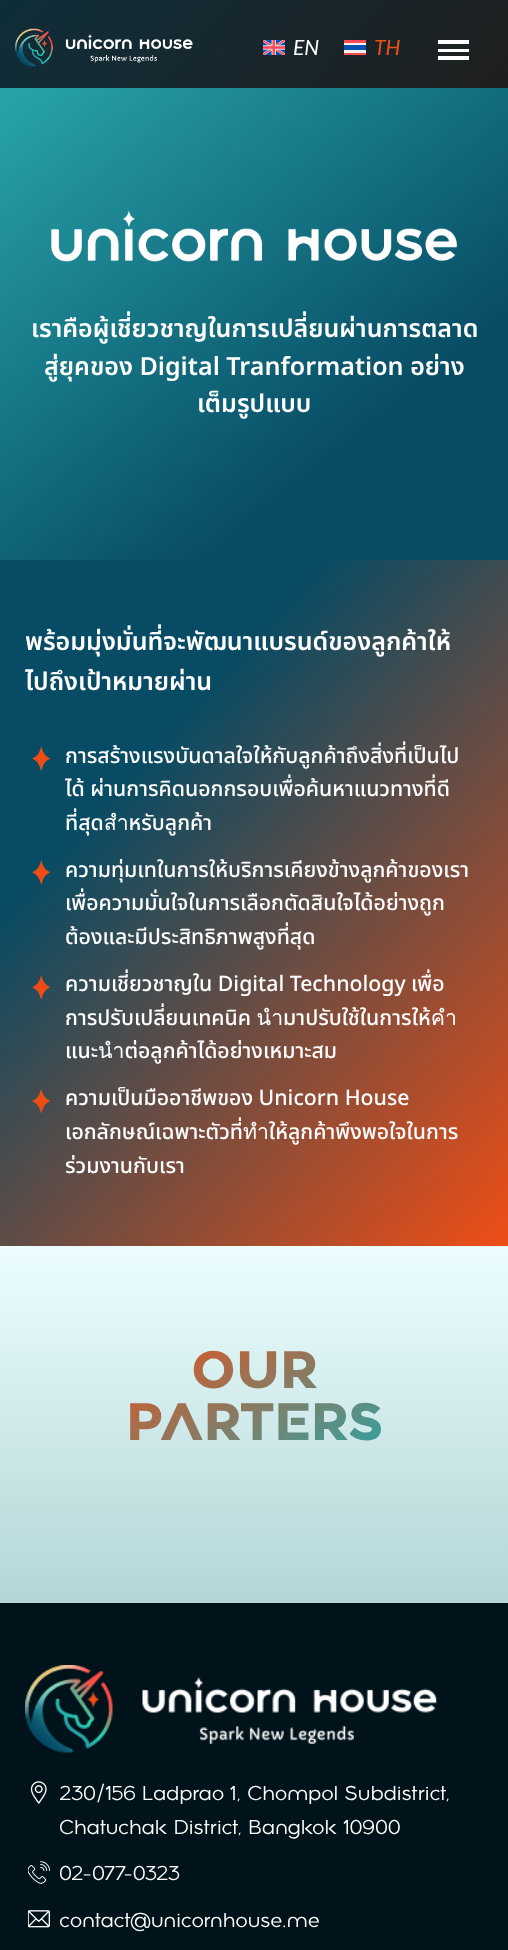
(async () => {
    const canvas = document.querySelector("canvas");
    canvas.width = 508;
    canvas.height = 1950;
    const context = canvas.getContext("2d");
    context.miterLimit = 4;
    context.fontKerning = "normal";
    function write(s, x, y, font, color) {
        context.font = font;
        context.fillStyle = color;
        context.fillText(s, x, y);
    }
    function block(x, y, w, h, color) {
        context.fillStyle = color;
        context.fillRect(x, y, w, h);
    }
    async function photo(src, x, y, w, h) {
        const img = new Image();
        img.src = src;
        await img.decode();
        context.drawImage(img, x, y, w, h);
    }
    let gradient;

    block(0, 0, 508, 1950, "rgb(255, 255, 255)");
    gradient = context.createLinearGradient(88, -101, 421, 189);
    gradient.addColorStop(0, "rgb(15, 46, 58)");
    gradient.addColorStop(1, "rgb(31, 31, 31)");
    context.fillStyle = gradient;
    context.fillRect(0, 0, 508, 88);
    await photo("media/1.png", 15, 28, 178, 39);
    await photo("media/2.png", 263, 40, 22, 15);
    write("EN", 293, 55, "italic 21px Lato", "rgb(255, 255, 255)");
    block(344, 40, 22, 15, "rgb(255, 75, 85)");
    write("TH", 374, 55, "italic 21px Lato", "rgb(239, 79, 22)");
    block(344, 43, 22, 10, "rgb(240, 240, 240)");
    block(344, 45, 22, 5, "rgb(0, 82, 180)");
    block(438, 40, 31, 4, "rgb(255, 255, 255)");
    block(438, 49, 31, 3, "rgb(255, 255, 255)");
    block(438, 56, 31, 4, "rgb(255, 255, 255)");
    gradient = context.createLinearGradient(38, 57, 471, 591);
    gradient.addColorStop(0, "rgb(40, 165, 170)");
    gradient.addColorStop(0.73, "rgb(7, 75, 100)");
    context.fillStyle = gradient;
    context.fillRect(0, 88, 508, 472);
    await photo("media/3.png", 51, 211, 406, 51);
    write("เราคือผู้เชี่ยวชาญในการเปลี่ยนผ่านการตลาด", 31, 337, "600 25px Noto Sans Thai", "rgb(255, 255, 255)");
    write("สู่ยุคของ Digital Tranformation อย่าง", 44, 375, "600 25px Noto Sans Thai", "rgb(255, 255, 255)");
    write("เต็มรูปแบบ", 197, 412, "600 25px Noto Sans Thai", "rgb(255, 255, 255)");
    gradient = context.createLinearGradient(-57, 623, 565, 1183);
    gradient.addColorStop(0.28, "rgb(7, 75, 100)");
    gradient.addColorStop(1, "rgb(239, 78, 22)");
    context.fillStyle = gradient;
    context.fillRect(0, 560, 508, 686);
    write("พร้อมมุ่งมั่นที่จะพัฒนาแบรนด์ของลูกค้าให้", 25, 650, "600 25px Noto Sans Thai", "rgb(255, 255, 255)");
    write("ไปถึงเป้าหมายผ่าน", 25, 690, "600 25px Noto Sans Thai", "rgb(255, 255, 255)");
    await photo("media/4.png", 32, 746, 18, 25);
    write("การสร้างแรงบันดาลใจให้กับลูกค้าถึงสิ่งที่เป็นไป", 65, 763, "500 21.25px Noto Sans Thai", "rgb(255, 255, 255)");
    write("ได้ ผ่านการคิดนอกกรอบเพื่อค้นหาแนวทางที่ดี", 65, 796, "500 21.25px Noto Sans Thai", "rgb(255, 255, 255)");
    write("ที่สุดสำหรับลูกค้า", 65, 830, "500 21.25px Noto Sans Thai", "rgb(255, 255, 255)");
    await photo("media/5.png", 32, 860, 18, 25);
    write("ความทุ่มเทในการให้บริการเคียงข้างลูกค้าของเรา", 65, 877, "500 21.25px Noto Sans Thai", "rgb(255, 255, 255)");
    write("เพื่อความมั่นใจในการเลือกตัดสินใจได้อย่างถูก", 65, 910, "500 21.25px Noto Sans Thai", "rgb(255, 255, 255)");
    write("ต้องและมีประสิทธิภาพสูงที่สุด", 65, 944, "500 21.25px Noto Sans Thai", "rgb(255, 255, 255)");
    await photo("media/6.png", 32, 975, 18, 25);
    write("ความเชี่ยวชาญใน Digital Technology เพื่อ", 65, 991, "500 21.25px Noto Sans Thai", "rgb(255, 255, 255)");
    write("การปรับเปลี่ยนเทคนิค นำมาปรับใช้ในการให้คำ", 65, 1025, "500 21.25px Noto Sans Thai", "rgb(255, 255, 255)");
    write("แนะนำต่อลูกค้าได้อย่างเหมาะสม", 65, 1058, "500 21.25px Noto Sans Thai", "rgb(255, 255, 255)");
    await photo("media/7.png", 32, 1089, 18, 24);
    write("ความเป็นมืออาชีพของ Unicorn House", 65, 1105, "500 21.25px Noto Sans Thai", "rgb(255, 255, 255)");
    write("เอกลักษณ์เฉพาะตัวที่ทำให้ลูกค้าพึงพอใจในการ", 65, 1139, "500 21.25px Noto Sans Thai", "rgb(255, 255, 255)");
    write("ร่วมงานกับเรา", 65, 1173, "500 21.25px Noto Sans Thai", "rgb(255, 255, 255)");
    gradient = context.createLinearGradient(254, 1246, 254, 1603);
    gradient.addColorStop(0, "rgb(236, 254, 255)");
    gradient.addColorStop(1, "rgb(180, 213, 214)");
    context.fillStyle = gradient;
    context.fillRect(0, 1246, 508, 357);
    context.font = "bold 52.5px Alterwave";
    gradient = context.createLinearGradient(193, 1293, 316, 1505);
    gradient.addColorStop(0, "rgb(239, 78, 22)");
    gradient.addColorStop(1, "rgb(40, 165, 170)");
    context.fillStyle = gradient;
    context.fillText("OUR", 191, 1388);
    context.fillText("PARTERS", 126, 1440);
    block(0, 1603, 508, 347, "rgb(0, 19, 26)");
    await photo("media/8.png", 25, 1665, 412, 88);
    await photo("media/9.png", 30, 1781, 17, 23);
    write("230/156 Ladprao 1, Chompol Subdistrict,", 59, 1800, "300 20px Alterwave", "rgb(255, 255, 255)");
    write("Chatuchak District, Bangkok 10900", 59, 1834, "300 20px Alterwave", "rgb(255, 255, 255)");
    await photo("media/10.png", 28, 1861, 22, 23);
    write("02-077-0323", 59, 1880, "300 20px Alterwave", "rgb(255, 255, 255)");
    await photo("media/11.png", 28, 1910, 22, 18);
    write("contact@unicornhouse.me", 59, 1927, "300 20px Alterwave", "rgb(255, 255, 255)");
})();
